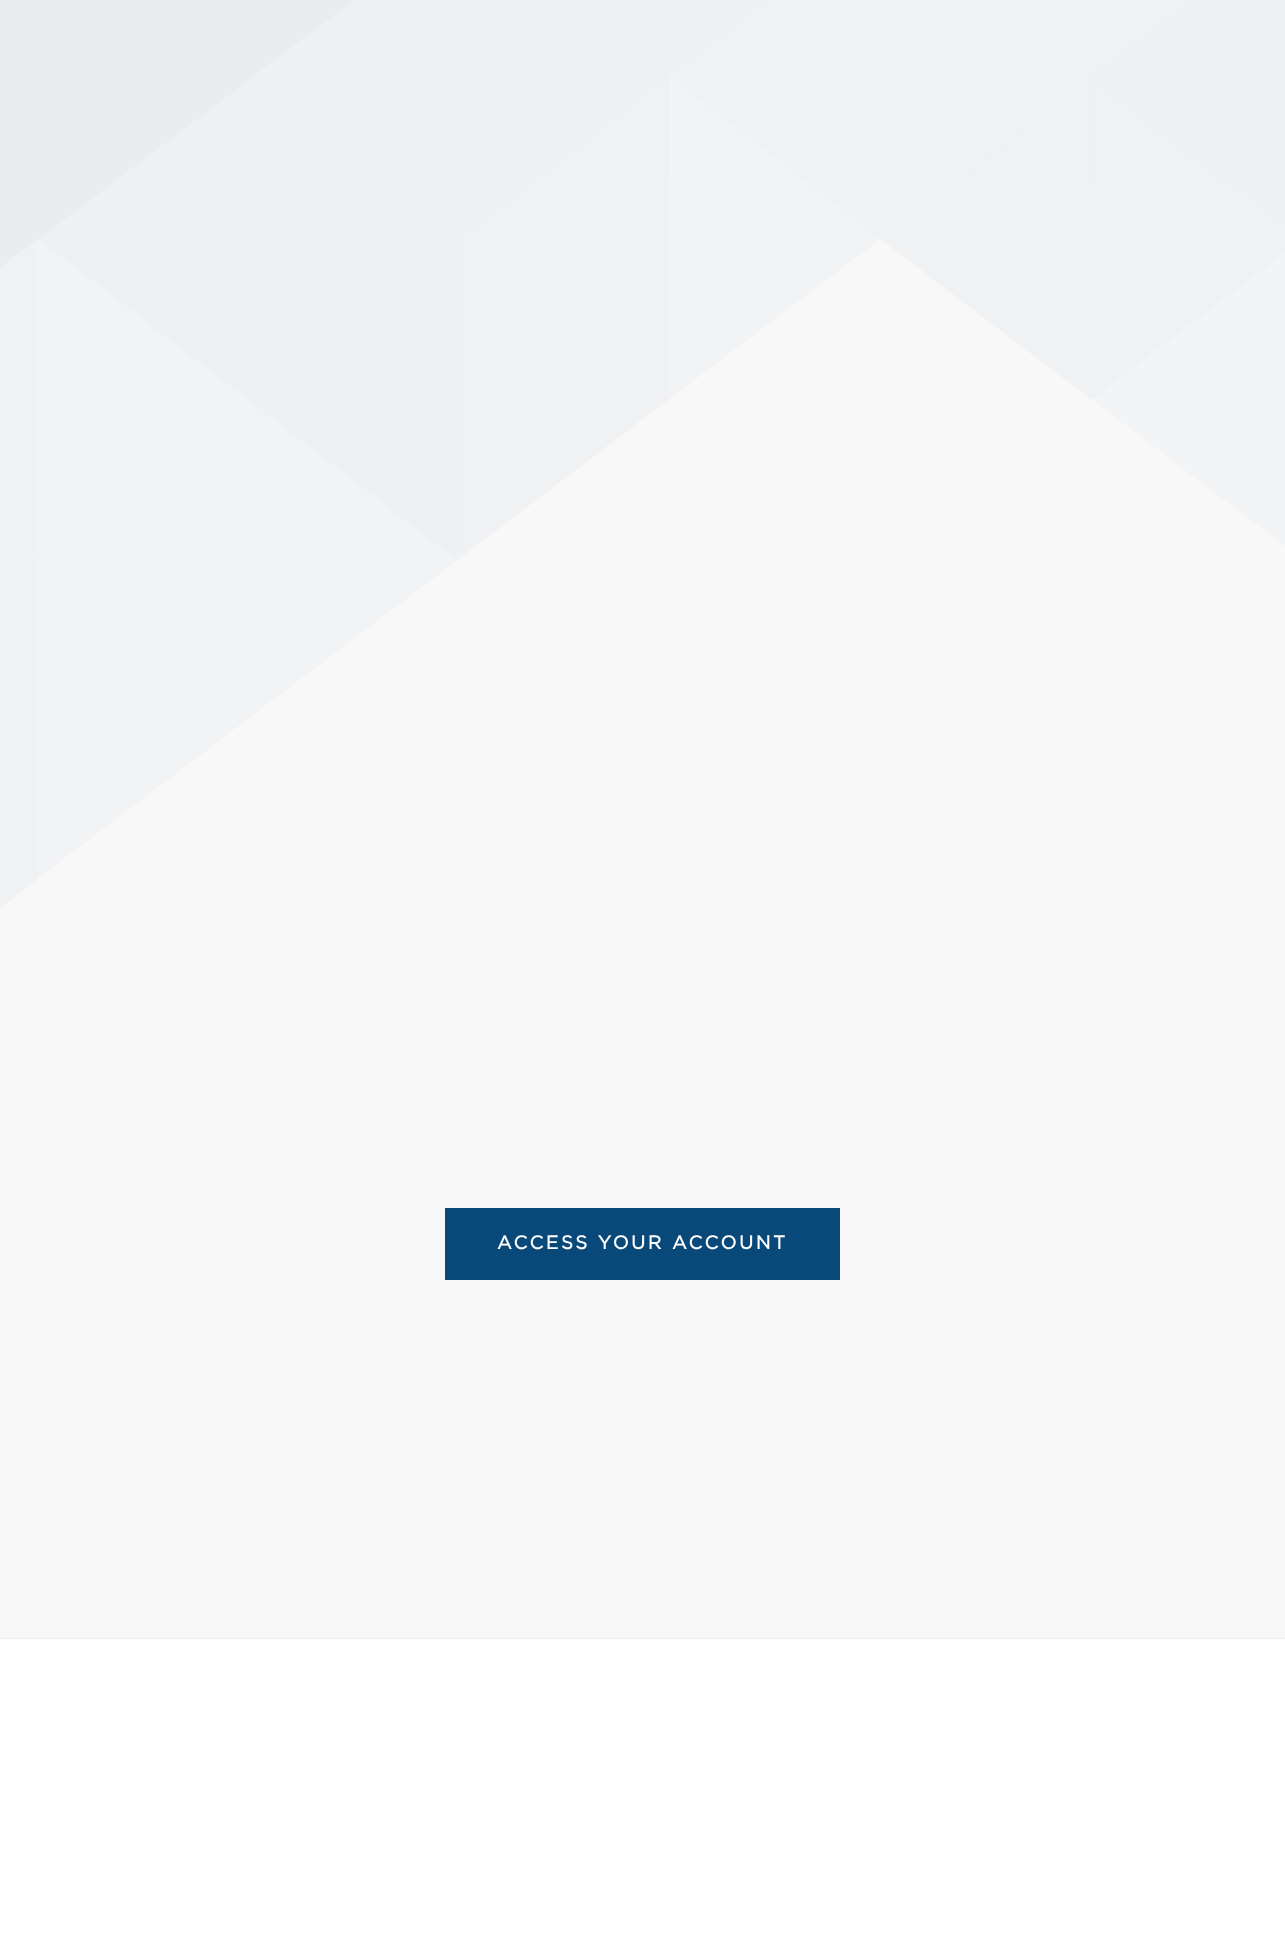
(async () => {
    const canvas = document.querySelector("canvas");
    canvas.width = 1285;
    canvas.height = 1947;
    const context = canvas.getContext("2d");
    context.miterLimit = 4;
    context.fontKerning = "normal";
    function write(s, x, y, font, color) {
        context.font = font;
        context.fillStyle = color;
        context.fillText(s, x, y);
    }
    function block(x, y, w, h, color) {
        context.fillStyle = color;
        context.fillRect(x, y, w, h);
    }
    async function photo(src, x, y, w, h) {
        const img = new Image();
        img.src = src;
        await img.decode();
        context.drawImage(img, x, y, w, h);
    }

    block(0, 0, 1285, 1947, "rgb(255, 255, 255)");
    block(0, 0, 1285, 1639, "rgb(236, 236, 236)");
    await photo("media/1.png", 0, 0, 1285, 1638);
    block(445, 1208, 395, 72, "rgb(9, 73, 122)");
    context.letterSpacing = "2.5px";
    write("ACCESS YOUR ACCOUNT", 497, 1249, "bold 18.75px Gotham", "rgb(255, 255, 255)");
})();
